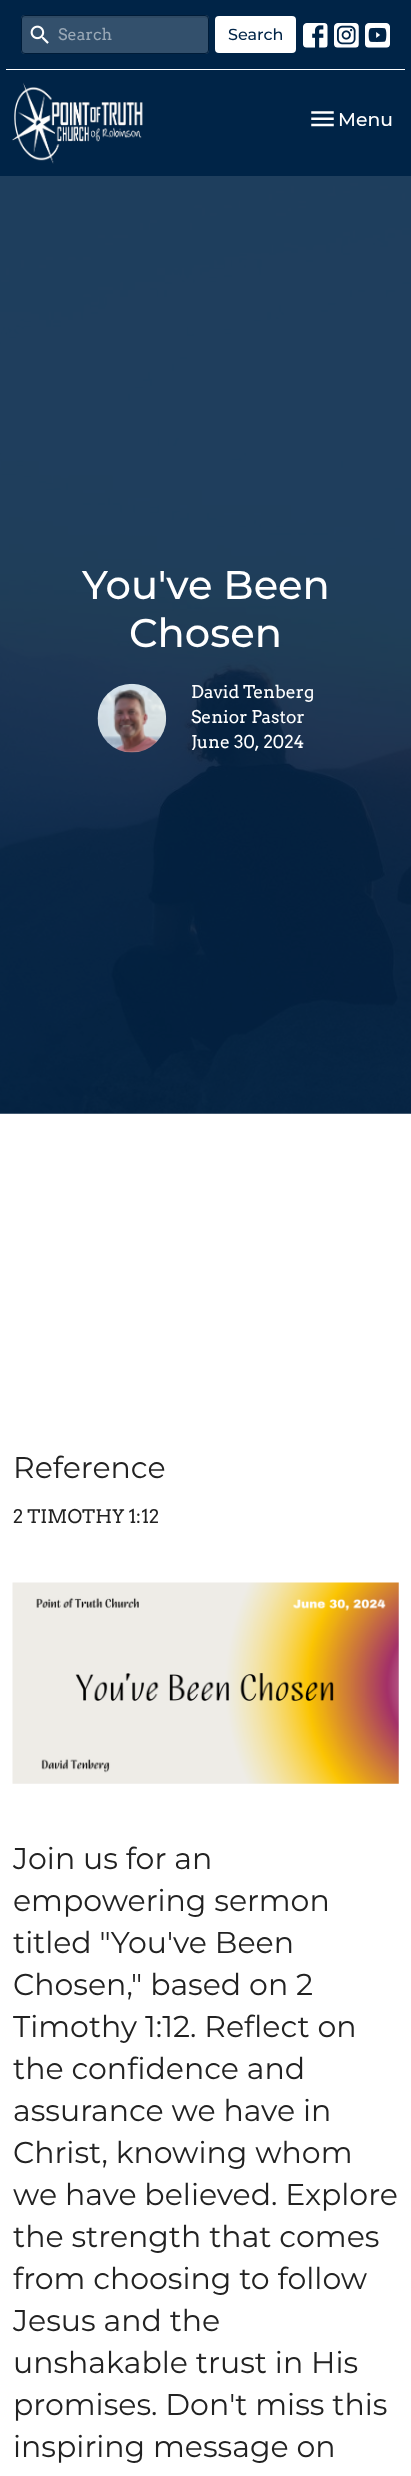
(async () => {
    const canvas = document.querySelector("canvas");
    canvas.width = 411;
    canvas.height = 2476;
    const context = canvas.getContext("2d");
    context.miterLimit = 4;
    context.fontKerning = "normal";
    function write(s, x, y, font, color) {
        context.font = font;
        context.fillStyle = color;
        context.fillText(s, x, y);
    }
    function block(x, y, w, h, color) {
        context.fillStyle = color;
        context.fillRect(x, y, w, h);
    }
    function card(x, y, w, h, r, color) {
        context.fillStyle = color;
        context.beginPath();
        context.roundRect(x, y, w, h, r);
        context.fill();
    }
    async function photo(src, x, y, w, h) {
        const img = new Image();
        img.src = src;
        await img.decode();
        context.drawImage(img, x, y, w, h);
    }

    block(0, 0, 411, 2476, "rgb(255, 255, 255)");
    block(0, 0, 411, 176, "rgb(0, 36, 71)");
    block(6, 69, 399, 1, "rgb(255, 255, 255)");
    card(21, 15, 188, 39, 4, "rgb(51, 80, 108)");
    context.fillStyle = "rgb(47, 74, 100)";
    context.beginPath();
    context.moveTo(25, 18);
    context.lineTo(205, 18);
    context.bezierCurveTo(206, 18, 208, 19, 208, 20);
    context.lineTo(208, 18);
    context.bezierCurveTo(208, 17, 207, 16, 206, 16);
    context.lineTo(26, 16);
    context.bezierCurveTo(24, 16, 23, 17, 23, 18);
    context.closePath();
    context.fill();
    context.beginPath();
    context.roundRect(21.5, 15.5, 187, 38, 3.5);
    context.strokeStyle = "rgb(0, 28, 56)";
    context.stroke();
    await photo("media/1.png", 30, 25, 19, 19);
    write("Search", 58, 40, "16px Arvo", "rgb(153, 168, 182)");
    card(215, 16, 81, 37, 4, "rgb(255, 255, 255)");
    write("Search", 228, 40, "500 16px Montserrat", "rgb(0, 36, 71)");
    await photo("media/2.png", 303, 23, 25, 25);
    await photo("media/3.png", 334, 23, 25, 25);
    await photo("media/4.png", 365, 23, 25, 25);
    await photo("media/5.png", 12, 82, 131, 82);
    await photo("media/6.png", 311, 111, 23, 16);
    write("Menu", 338, 126, "500 18.75px Montserrat", "rgb(255, 255, 255)");
    await photo("media/7.png", 0, 176, 411, 938);
    write("You've Been", 82, 599, "500 40px Montserrat", "rgb(255, 255, 255)");
    write("Chosen", 129, 647, "500 40px Montserrat", "rgb(255, 255, 255)");
    await photo("media/8.png", 97, 683, 70, 70);
    write("David Tenberg", 191, 698, "17.5px Arvo", "rgb(255, 255, 255)");
    write("Senior Pastor", 191, 723, "17.5px Arvo", "rgb(255, 255, 255)");
    write("June 30, 2024", 191, 748, "17.5px Arvo", "rgb(255, 255, 255)");
    write("Reference", 13, 1478, "30px Montserrat", "rgb(34, 34, 34)");
    write("2 TIMOTHY 1:12", 13, 1523, "18.75px Arvo", "rgb(34, 34, 34)");
    await photo("media/9.png", 12, 1582, 387, 202);
    write("Join us for an", 13, 1869, "30px Montserrat", "rgb(34, 34, 34)");
    write("empowering sermon", 13, 1911, "30px Montserrat", "rgb(34, 34, 34)");
    write("titled \"You've Been", 13, 1953, "30px Montserrat", "rgb(34, 34, 34)");
    write("Chosen,\" based on 2", 13, 1995, "30px Montserrat", "rgb(34, 34, 34)");
    write("Timothy 1:12", 13, 2037, "30px Montserrat", "rgb(34, 34, 34)");
    write(". Reflect on", 190, 2037, "30px Montserrat", "rgb(34, 34, 34)");
    write("the confidence and", 13, 2079, "30px Montserrat", "rgb(34, 34, 34)");
    write("assurance we have in", 13, 2121, "30px Montserrat", "rgb(34, 34, 34)");
    write("Christ, knowing whom", 13, 2163, "30px Montserrat", "rgb(34, 34, 34)");
    write("we have believed. Explore", 13, 2205, "30px Montserrat", "rgb(34, 34, 34)");
    write("the strength that comes", 13, 2247, "30px Montserrat", "rgb(34, 34, 34)");
    write("from choosing to follow", 13, 2289, "30px Montserrat", "rgb(34, 34, 34)");
    write("Jesus and the", 13, 2331, "30px Montserrat", "rgb(34, 34, 34)");
    write("unshakable trust in His", 13, 2373, "30px Montserrat", "rgb(34, 34, 34)");
    write("promises. Don't miss this", 13, 2415, "30px Montserrat", "rgb(34, 34, 34)");
    write("inspiring message on", 13, 2457, "30px Montserrat", "rgb(34, 34, 34)");
})();
